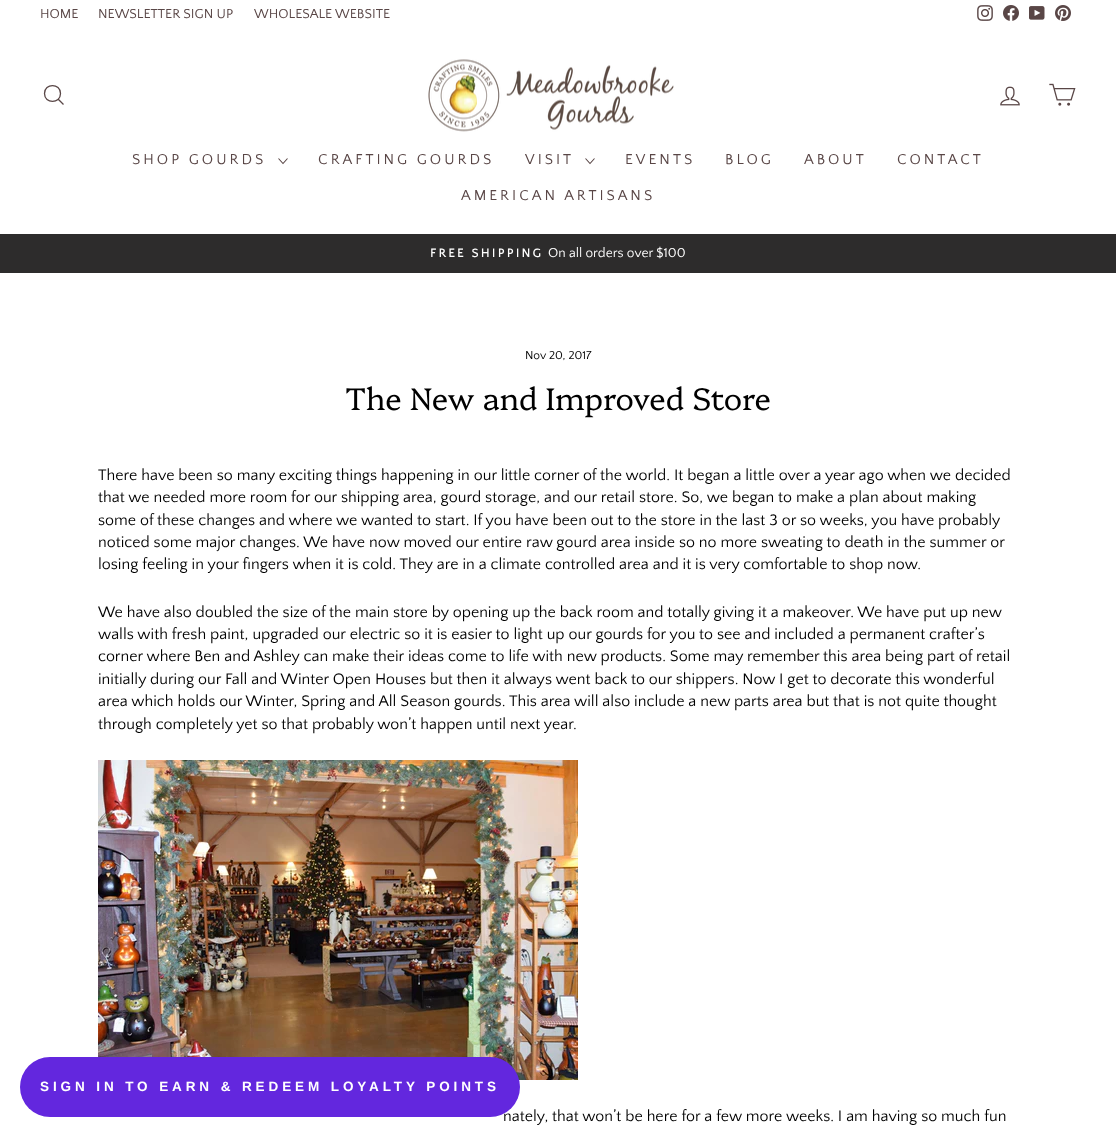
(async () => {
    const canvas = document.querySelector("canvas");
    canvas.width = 1116;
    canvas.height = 1137;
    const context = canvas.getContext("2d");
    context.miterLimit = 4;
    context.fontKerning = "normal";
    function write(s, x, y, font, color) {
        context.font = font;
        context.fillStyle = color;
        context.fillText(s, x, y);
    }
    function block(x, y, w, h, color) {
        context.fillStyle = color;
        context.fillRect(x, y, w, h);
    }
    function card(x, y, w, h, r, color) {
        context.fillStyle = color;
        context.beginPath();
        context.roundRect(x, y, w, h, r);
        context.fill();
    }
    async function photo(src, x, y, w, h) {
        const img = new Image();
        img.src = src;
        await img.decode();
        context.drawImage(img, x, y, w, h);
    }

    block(0, 0, 1116, 1137, "rgb(255, 255, 255)");
    write("HOME", 40, 18, "13.6px Quattrocento Sans", "rgb(89, 70, 70)");
    write("NEWSLETTER SIGN UP", 98, 18, "13.6px Quattrocento Sans", "rgb(89, 70, 70)");
    write("WHOLESALE WEBSITE", 254, 18, "13.6px Quattrocento Sans", "rgb(89, 70, 70)");
    await photo("media/1.png", 977, 5, 16, 16);
    await photo("media/2.png", 1003, 5, 16, 16);
    await photo("media/3.png", 1029, 6, 16, 14);
    await photo("media/4.png", 1055, 5, 16, 16);
    context.beginPath();
    context.moveTo(60.5, 93.5);
    context.bezierCurveTo(60.5, 104, 44.5, 104, 44.5, 93.5);
    context.bezierCurveTo(44.5, 83, 60.5, 83, 60.5, 93.5);
    context.closePath();
    context.moveTo(63.5, 104.5);
    context.lineTo(58.5, 99.5);
    context.strokeStyle = "rgb(89, 70, 70)";
    context.lineWidth = 1.3;
    context.stroke();
    await photo("media/5.png", 428, 59, 246, 73);
    await photo("media/6.png", 1000, 86, 20, 20);
    await photo("media/7.png", 1049, 83, 27, 23);
    context.letterSpacing = "3px";
    write("SHOP GOURDS", 132, 164, "15px Quattrocento Sans", "rgb(89, 70, 70)");
    context.beginPath();
    context.moveTo(278.5, 158.5);
    context.lineTo(283, 163.5);
    context.lineTo(287.5, 158.5);
    context.lineWidth = 1.1;
    context.stroke();
    write("CRAFTING GOURDS", 318, 164, "15px Quattrocento Sans", "rgb(89, 70, 70)");
    write("VISIT", 525, 164, "15px Quattrocento Sans", "rgb(89, 70, 70)");
    context.beginPath();
    context.moveTo(585.5, 158.5);
    context.lineTo(590, 163.5);
    context.lineTo(594.5, 158.5);
    context.stroke();
    write("EVENTS", 625, 164, "15px Quattrocento Sans", "rgb(89, 70, 70)");
    write("BLOG", 725, 164, "15px Quattrocento Sans", "rgb(89, 70, 70)");
    write("ABOUT", 804, 164, "15px Quattrocento Sans", "rgb(89, 70, 70)");
    write("CONTACT", 897, 164, "15px Quattrocento Sans", "rgb(89, 70, 70)");
    write("AMERICAN ARTISANS", 461, 200, "15px Quattrocento Sans", "rgb(89, 70, 70)");
    block(0, 234, 1116, 39, "rgb(45, 44, 44)");
    context.letterSpacing = "2.5px";
    write("FREE SHIPPING", 430, 257, "bold 12.25px Quattrocento Sans", "rgb(255, 255, 255)");
    context.letterSpacing = "0px";
    write("On all orders over $100", 548, 257, "13.6px Quattrocento Sans", "rgb(255, 255, 255)");
    write("Nov 20, 2017", 525, 359, "12px Quattrocento Sans", "rgb(0, 0, 0)");
    write("The New and Improved Store", 345, 410, "300 31px Platypi", "rgb(0, 0, 0)");
    write("There have been so many exciting things happening in our little corner of the world. It began a little over a year ago when we decided", 98, 480, "16px Quattrocento Sans", "rgb(0, 0, 0)");
    write("that we needed more room for our shipping area, gourd storage, and our retail store. So, we began to make a plan about making", 98, 502, "16px Quattrocento Sans", "rgb(0, 0, 0)");
    write("some of these changes and where we wanted to start. If you have been out to the store in the last 3 or so weeks, you have probably", 98, 525, "16px Quattrocento Sans", "rgb(0, 0, 0)");
    write("noticed some major changes. We have now moved our entire raw gourd area inside so no more sweating to death in the summer or", 98, 547, "16px Quattrocento Sans", "rgb(0, 0, 0)");
    write("losing feeling in your fingers when it is cold. They are in a climate controlled area and it is very comfortable to shop now.", 98, 569, "16px Quattrocento Sans", "rgb(0, 0, 0)");
    write("We have also doubled the size of the main store by opening up the back room and totally giving it a makeover. We have put up new", 98, 617, "16px Quattrocento Sans", "rgb(0, 0, 0)");
    write("walls with fresh paint, upgraded our electric so it is easier to light up our gourds for you to see and included a permanent crafter’s", 98, 639, "16px Quattrocento Sans", "rgb(0, 0, 0)");
    write("corner where Ben and Ashley can make their ideas come to life with new products. Some may remember this area being part of retail", 98, 661, "16px Quattrocento Sans", "rgb(0, 0, 0)");
    write("initially during our Fall and Winter Open Houses but then it always went back to our shippers. Now I get to decorate this wonderful", 98, 684, "16px Quattrocento Sans", "rgb(0, 0, 0)");
    write("area which holds our Winter, Spring and All Season gourds. This area will also include a new parts area but that is not quite thought", 98, 706, "16px Quattrocento Sans", "rgb(0, 0, 0)");
    write("through completely yet so that probably won’t happen until next year.", 98, 729, "16px Quattrocento Sans", "rgb(0, 0, 0)");
    await photo("media/8.png", 98, 760, 480, 320);
    write("nately, that won’t be here for a few more weeks. I am having so much fun", 503, 1121, "16px Quattrocento Sans", "rgb(0, 0, 0)");
    card(20, 1057, 500, 60, 30, "rgb(99, 39, 222)");
    context.letterSpacing = "3.9px";
    write("SIGN IN TO EARN & REDEEM LOYALTY POINTS", 40, 1091, "bold 13.5px Liberation Sans", "rgb(255, 255, 255)");
})();
